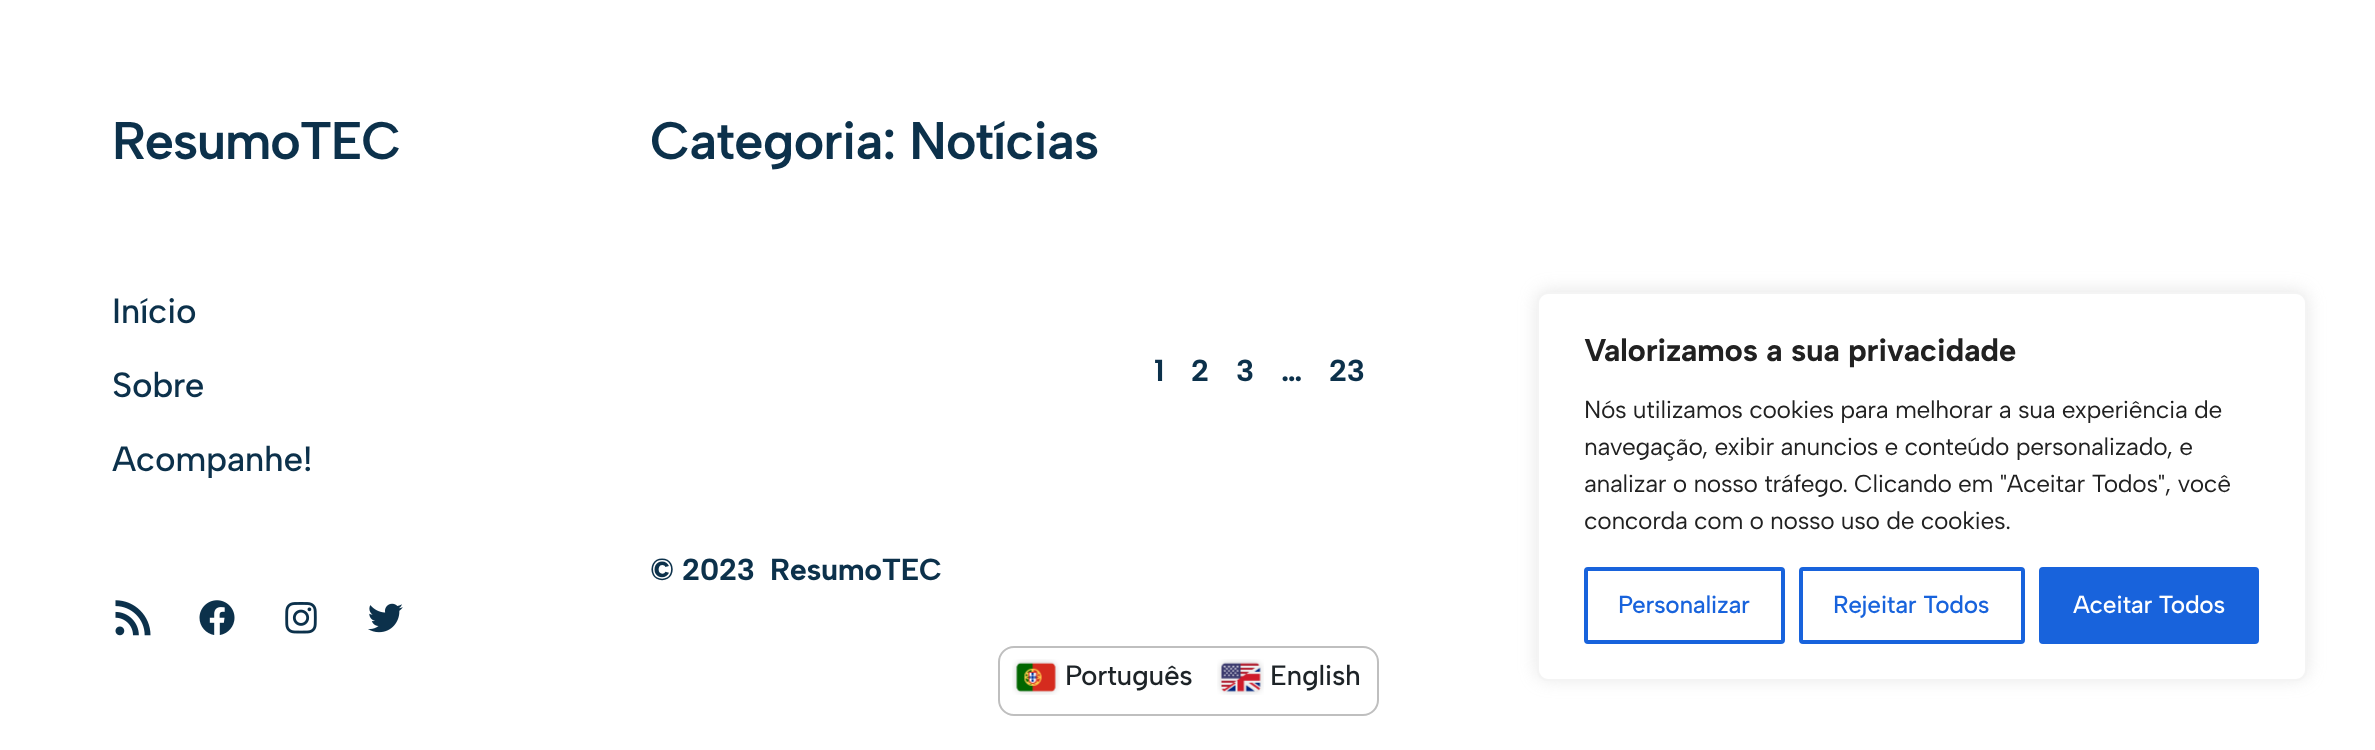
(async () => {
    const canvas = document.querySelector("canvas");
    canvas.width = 2375;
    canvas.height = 750;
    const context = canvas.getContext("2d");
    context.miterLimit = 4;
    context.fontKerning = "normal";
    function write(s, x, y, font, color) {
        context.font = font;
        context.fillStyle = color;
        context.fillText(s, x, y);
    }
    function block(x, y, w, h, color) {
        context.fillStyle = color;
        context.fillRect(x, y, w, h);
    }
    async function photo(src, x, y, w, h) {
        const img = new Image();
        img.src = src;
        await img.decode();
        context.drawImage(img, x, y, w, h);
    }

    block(0, 0, 2375, 750, "rgb(255, 255, 255)");
    context.letterSpacing = "-1.5px";
    write("ResumoTEC", 112, 159, "600 52.75px Albert Sans", "rgb(12, 49, 75)");
    context.letterSpacing = "-0.35px";
    write("Início", 112, 323, "500 35px Albert Sans", "rgb(12, 49, 75)");
    write("Sobre", 112, 397, "500 35px Albert Sans", "rgb(12, 49, 75)");
    write("Acompanhe!", 112, 471, "500 35px Albert Sans", "rgb(12, 49, 75)");
    await photo("media/1.png", 115, 600, 36, 36);
    await photo("media/2.png", 199, 600, 36, 35);
    await photo("media/3.png", 285, 602, 32, 32);
    await photo("media/4.png", 368, 603, 35, 30);
    context.letterSpacing = "-1px";
    write("Categoria: Notícias", 650, 159, "600 52.75px Albert Sans", "rgb(12, 49, 75)");
    context.letterSpacing = "-0.35px";
    write("1", 1154, 381, "bold 30.5px Albert Sans", "rgb(12, 49, 75)");
    write("2", 1191, 381, "bold 30.5px Albert Sans", "rgb(12, 49, 75)");
    write("3", 1236, 381, "bold 30.5px Albert Sans", "rgb(12, 49, 75)");
    write("…", 1281, 381, "bold 30.5px Albert Sans", "rgb(12, 49, 75)");
    write("23", 1329, 381, "bold 30.5px Albert Sans", "rgb(12, 49, 75)");
    write("© 2023", 650, 580, "bold 30.5px Albert Sans", "rgb(12, 49, 75)");
    write("ResumoTEC", 770, 580, "bold 30.5px Albert Sans", "rgb(12, 49, 75)");
    context.fillStyle = "rgba(172, 171, 171, 0.3)";
    context.filter = "blur(9px)";
    context.beginPath();
    context.roundRect(1537, 291, 770, 388, 11);
    context.fill();
    context.filter = "none";
    context.fillStyle = "rgb(255, 255, 255)";
    context.beginPath();
    context.roundRect(1538, 293, 768, 387, 10);
    context.fill();
    context.strokeStyle = "rgb(244, 244, 244)";
    context.lineWidth = 2;
    context.stroke();
    write("Valorizamos a sua privacidade", 1584, 361, "bold 31.5px Albert Sans", "rgb(33, 33, 33)");
    write("Nós utilizamos cookies para melhorar a sua experiência de", 1584, 418, "24.5px Albert Sans", "rgb(33, 33, 33)");
    write("navegação, exibir anuncios e conteúdo personalizado, e", 1584, 455, "24.5px Albert Sans", "rgb(33, 33, 33)");
    write("analizar o nosso tráfego. Clicando em \"Aceitar Todos\", você", 1584, 492, "24.5px Albert Sans", "rgb(33, 33, 33)");
    write("concorda com o nosso uso de cookies.", 1584, 529, "24.5px Albert Sans", "rgb(33, 33, 33)");
    context.beginPath();
    context.roundRect(1586, 569, 197, 73, 2);
    context.strokeStyle = "rgb(24, 99, 220)";
    context.lineWidth = 4;
    context.stroke();
    write("Personalizar", 1618, 613, "500 24.5px Albert Sans", "rgb(24, 99, 220)");
    context.beginPath();
    context.roundRect(1801, 569, 222, 73, 2);
    context.stroke();
    write("Rejeitar Todos", 1833, 613, "500 24.5px Albert Sans", "rgb(24, 99, 220)");
    context.beginPath();
    context.roundRect(2041, 569, 216, 73, 2);
    context.fill();
    context.stroke();
    write("Aceitar Todos", 2073, 613, "500 24.5px Albert Sans", "rgb(255, 255, 255)");
    context.beginPath();
    context.roundRect(999, 647, 379, 68, 15);
    context.strokeStyle = "rgb(191, 191, 191)";
    context.lineWidth = 2;
    context.stroke();
    await photo("media/5.png", 1012, 659, 48, 36);
    write("Português", 1065, 685, "500 28px Albert Sans", "rgb(29, 35, 39)");
    await photo("media/6.png", 1217, 659, 47, 36);
    write("English", 1270, 685, "500 28px Albert Sans", "rgb(29, 35, 39)");
})();
